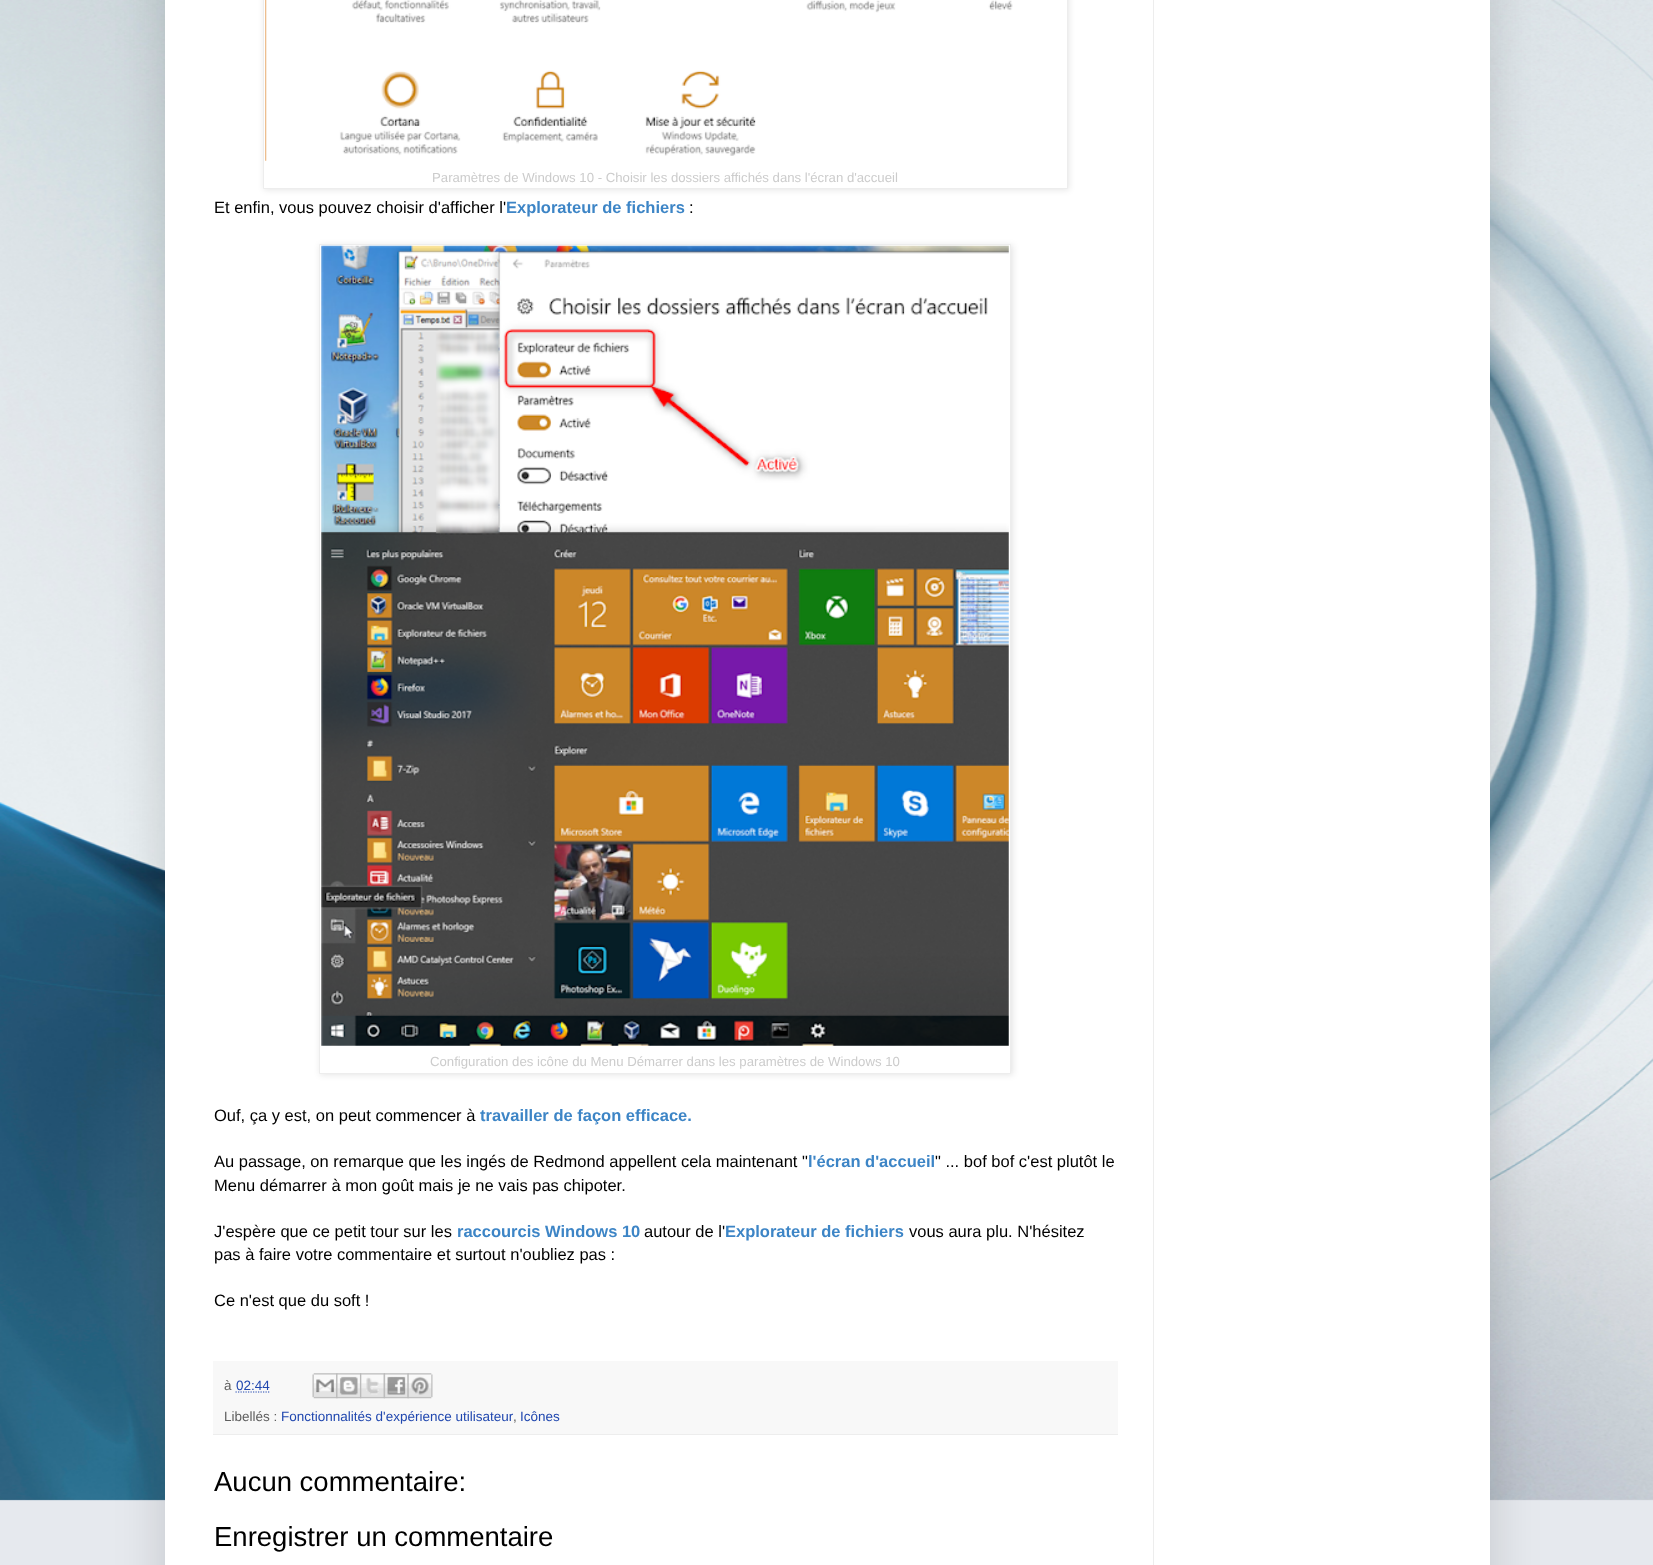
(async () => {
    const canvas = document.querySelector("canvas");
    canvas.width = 1653;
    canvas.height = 1565;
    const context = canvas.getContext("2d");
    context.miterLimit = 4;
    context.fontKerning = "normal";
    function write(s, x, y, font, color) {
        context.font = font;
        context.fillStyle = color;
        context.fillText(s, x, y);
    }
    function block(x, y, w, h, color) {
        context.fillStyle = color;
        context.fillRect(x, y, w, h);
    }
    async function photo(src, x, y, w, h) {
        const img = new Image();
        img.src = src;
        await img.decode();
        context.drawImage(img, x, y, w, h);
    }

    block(0, 0, 1653, 1565, "rgb(230, 233, 238)");
    await photo("media/1.png", 0, 0, 1653, 1501);
    context.fillStyle = "rgba(0, 0, 0, 0.15)";
    context.filter = "blur(25px)";
    context.beginPath();
    context.rect(165, -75, 1325, 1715);
    context.fill();
    context.filter = "none";
    block(165, 0, 1325, 1565, "rgb(255, 255, 255)");
    context.fillStyle = "rgba(0, 0, 0, 0.1)";
    context.filter = "blur(3px)";
    context.beginPath();
    context.rect(264, -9, 805, 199);
    context.fill();
    context.filter = "none";
    context.fillStyle = "rgb(255, 255, 255)";
    context.beginPath();
    context.rect(263.5, -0.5, 804, 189);
    context.fill();
    context.strokeStyle = "rgb(237, 237, 237)";
    context.stroke();
    await photo("media/2.png", 265, 0, 748, 161);
    write("Paramètres de Windows 10 - Choisir les dossiers affichés dans l'écran d'accueil", 432, 182, "13.2px Liberation Sans", "rgb(204, 204, 204)");
    write("Et enfin, vous pouvez choisir d'afficher l'", 214, 213, "16.5px Liberation Sans", "rgb(0, 0, 0)");
    write("Explorateur de fichiers", 506, 213, "bold 16.5px Liberation Sans", "rgb(61, 133, 198)");
    write(":", 689, 213, "16.5px Liberation Sans", "rgb(0, 0, 0)");
    context.fillStyle = "rgba(0, 0, 0, 0.1)";
    context.filter = "blur(3px)";
    context.beginPath();
    context.rect(320, 245, 693, 830);
    context.fill();
    context.filter = "none";
    context.fillStyle = "rgb(255, 255, 255)";
    context.beginPath();
    context.rect(319.5, 244.5, 691, 829);
    context.fill();
    context.stroke();
    await photo("media/3.png", 321, 245, 688, 801);
    write("Configuration des icône du Menu Démarrer dans les paramètres de Windows 10", 430, 1066, "13.2px Liberation Sans", "rgb(204, 204, 204)");
    write("Ouf, ça y est, on peut commencer à", 214, 1121, "16.5px Liberation Sans", "rgb(0, 0, 0)");
    write("travailler de façon efficace.", 480, 1121, "bold 16.5px Liberation Sans", "rgb(61, 133, 198)");
    write("Au passage, on remarque que les ingés de Redmond appellent cela maintenant \"", 214, 1167, "16.5px Liberation Sans", "rgb(0, 0, 0)");
    write("l'écran d'accueil", 808, 1167, "bold 16.5px Liberation Sans", "rgb(61, 133, 198)");
    write("\" ... bof bof c'est plutôt le", 935, 1167, "16.5px Liberation Sans", "rgb(0, 0, 0)");
    write("Menu démarrer à mon goût mais je ne vais pas chipoter.", 214, 1191, "16.5px Liberation Sans", "rgb(0, 0, 0)");
    write("J'espère que ce petit tour sur les", 214, 1237, "16.5px Liberation Sans", "rgb(0, 0, 0)");
    write("raccourcis Windows 10", 457, 1237, "bold 16.5px Liberation Sans", "rgb(61, 133, 198)");
    write("autour de l'", 644, 1237, "16.5px Liberation Sans", "rgb(0, 0, 0)");
    write("Explorateur de fichiers", 725, 1237, "bold 16.5px Liberation Sans", "rgb(61, 133, 198)");
    write("vous aura plu. N'hésitez", 909, 1237, "16.5px Liberation Sans", "rgb(0, 0, 0)");
    write("pas à faire votre commentaire et surtout n'oubliez pas :", 214, 1260, "16.5px Liberation Sans", "rgb(0, 0, 0)");
    write("Ce n'est que du soft !", 214, 1306, "16.5px Liberation Sans", "rgb(0, 0, 0)");
    block(213, 1361, 905, 73, "rgb(248, 248, 248)");
    block(213, 1434, 905, 1, "rgb(237, 237, 237)");
    write("à", 224, 1390, "13.5px Liberation Sans", "rgb(94, 94, 94)");
    write("02:44", 236, 1390, "13.5px Liberation Sans", "rgb(32, 71, 175)");
    context.beginPath();
    context.moveTo(235.5, 1392);
    context.lineTo(269.5, 1392);
    context.strokeStyle = "rgb(32, 71, 175)";
    context.lineWidth = 1.2;
    context.setLineDash([1.25, 1.25]);
    context.stroke();
    await photo("media/4.png", 312, 1373, 26, 26);
    await photo("media/5.png", 336, 1373, 26, 26);
    await photo("media/6.png", 360, 1373, 25, 26);
    await photo("media/7.png", 383, 1373, 26, 26);
    await photo("media/8.png", 407, 1373, 26, 26);
    write("Libellés :", 224, 1421, "13.5px Liberation Sans", "rgb(94, 94, 94)");
    write("Fonctionnalités d'expérience utilisateur", 281, 1421, "13.5px Liberation Sans", "rgb(32, 71, 175)");
    write(",", 513, 1421, "13.5px Liberation Sans", "rgb(94, 94, 94)");
    write("Icônes", 520, 1421, "13.5px Liberation Sans", "rgb(32, 71, 175)");
    write("Aucun commentaire:", 214, 1491, "27.5px Liberation Sans", "rgb(0, 0, 0)");
    write("Enregistrer un commentaire", 214, 1546, "27.5px Liberation Sans", "rgb(0, 0, 0)");
    block(1153, 0, 1, 1565, "rgb(237, 237, 237)");
})();
